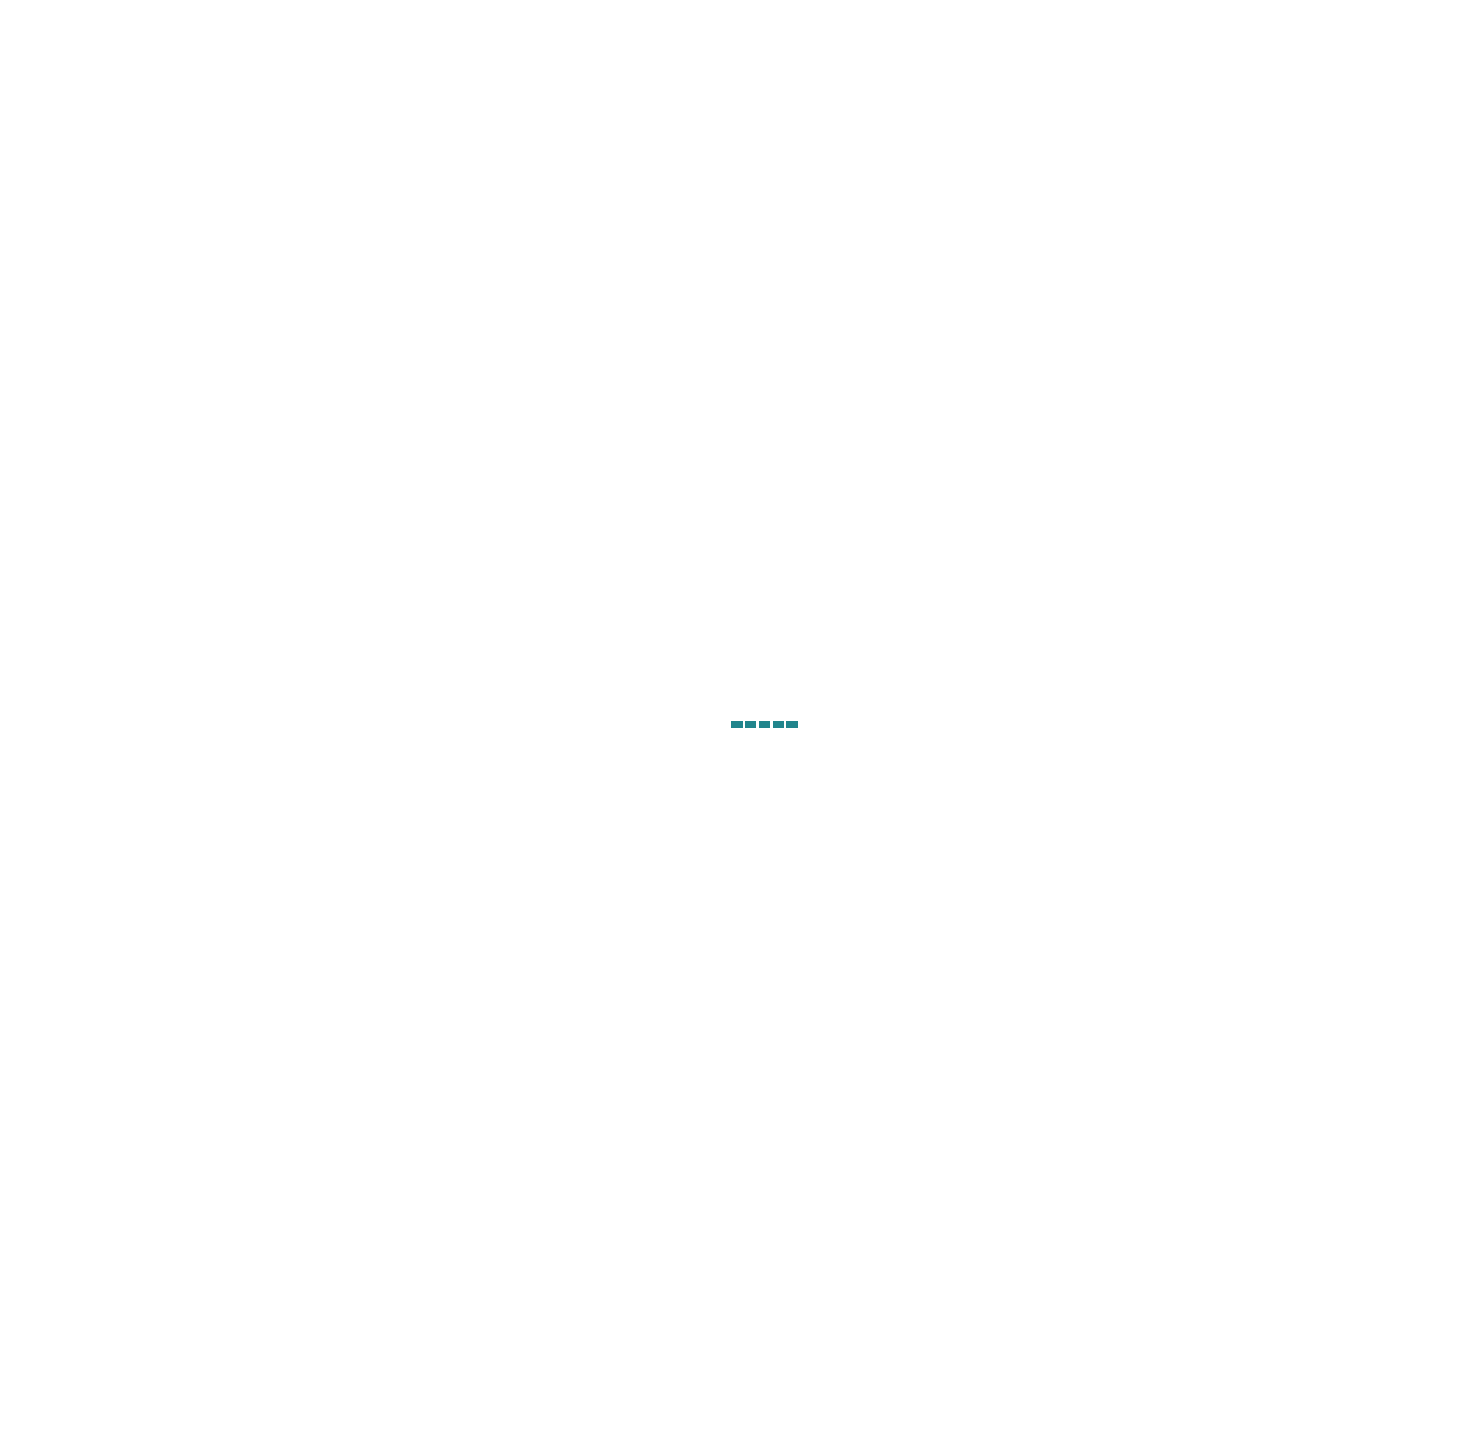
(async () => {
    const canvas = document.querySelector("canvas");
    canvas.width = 1462;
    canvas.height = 1453;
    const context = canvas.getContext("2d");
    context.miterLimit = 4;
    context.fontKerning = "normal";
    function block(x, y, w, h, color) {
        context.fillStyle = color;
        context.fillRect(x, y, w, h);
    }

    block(0, 0, 1462, 1453, "rgb(255, 255, 255)");
    block(731, 721, 12, 7, "rgb(33, 133, 140)");
    block(745, 721, 11, 7, "rgb(33, 133, 140)");
    block(759, 721, 11, 7, "rgb(33, 133, 140)");
    block(773, 721, 11, 7, "rgb(33, 133, 140)");
    block(786, 721, 12, 7, "rgb(33, 133, 140)");
})();
